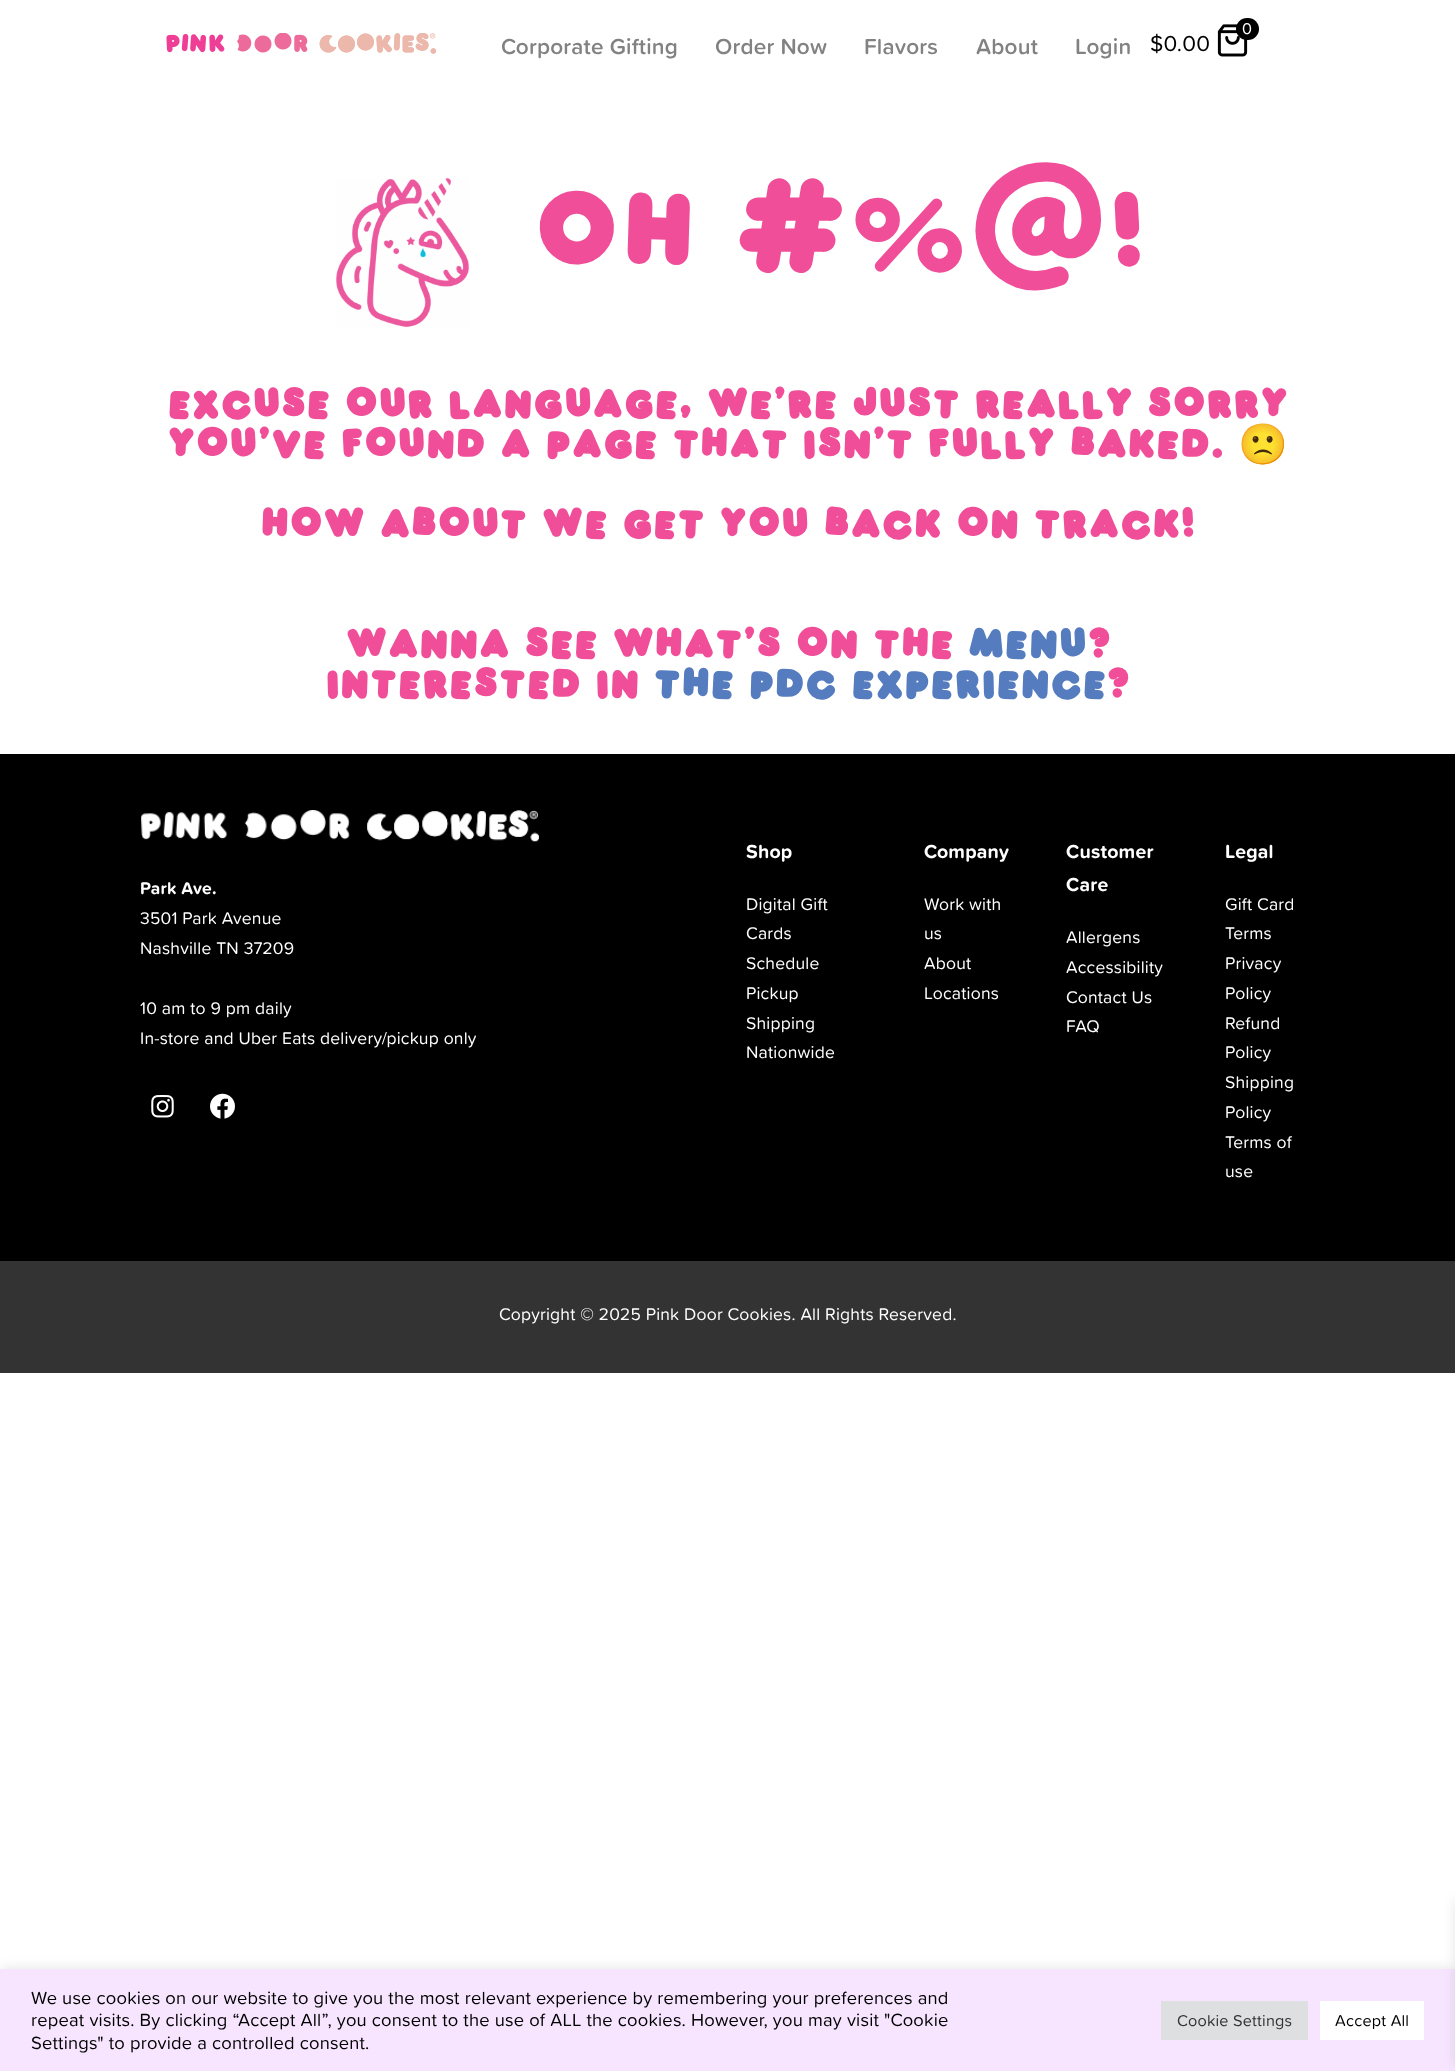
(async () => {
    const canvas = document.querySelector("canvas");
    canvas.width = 1455;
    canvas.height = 2071;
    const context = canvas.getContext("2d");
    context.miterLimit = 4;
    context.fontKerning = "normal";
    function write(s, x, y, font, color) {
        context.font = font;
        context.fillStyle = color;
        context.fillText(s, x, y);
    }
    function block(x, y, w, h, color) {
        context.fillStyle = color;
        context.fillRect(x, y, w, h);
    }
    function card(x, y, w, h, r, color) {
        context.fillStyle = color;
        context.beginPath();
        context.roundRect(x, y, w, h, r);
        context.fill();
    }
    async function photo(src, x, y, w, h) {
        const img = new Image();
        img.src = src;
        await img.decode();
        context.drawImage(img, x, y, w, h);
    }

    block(0, 0, 1455, 2071, "rgb(255, 255, 255)");
    await photo("media/1.png", 166, 33, 270, 21);
    context.letterSpacing = "0.2px";
    write("Corporate Gifting", 501, 54, "600 22.5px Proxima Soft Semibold", "rgb(130, 130, 130)");
    write("Order Now", 715, 54, "600 22.5px Proxima Soft Semibold", "rgb(130, 130, 130)");
    write("Flavors", 864, 54, "600 22.5px Proxima Soft Semibold", "rgb(130, 130, 130)");
    write("About", 976, 54, "600 22.5px Proxima Soft Semibold", "rgb(130, 130, 130)");
    write("Login", 1075, 54, "600 22.5px Proxima Soft Semibold", "rgb(130, 130, 130)");
    await photo("media/2.png", 1217, 24, 31, 33);
    card(1236, 18, 23, 22, 11, "rgb(0, 0, 0)");
    write("0", 1242, 34, "16.25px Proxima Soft", "rgb(255, 255, 255)");
    write("$0.00", 1150, 51, "22.5px Proxima Soft", "rgb(0, 0, 0)");
    await photo("media/3.png", 336, 178, 134, 149);
    write("Oh #%@!", 533, 270, "105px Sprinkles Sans", "rgb(240, 78, 152)");
    write("Excuse our language, we're just really sorry", 167, 418, "bold 40px Sprinkles Sans", "rgb(240, 78, 152)");
    write("you've found a page that isn't fully baked.", 167, 458, "bold 40px Sprinkles Sans", "rgb(240, 78, 152)");
    write("🙁", 1238, 458, "bold 40px Noto Color Emoji", "rgb(240, 78, 152)");
    write("how about we get you back on track!", 260, 538, "bold 40px Sprinkles Sans", "rgb(240, 78, 152)");
    write("Wanna see what's on the", 345, 658, "bold 40px Sprinkles Sans", "rgb(240, 78, 152)");
    write("menu", 967, 658, "bold 40px Sprinkles Sans", "rgb(85, 124, 191)");
    write("?", 1087, 658, "bold 40px Sprinkles Sans", "rgb(240, 78, 152)");
    write("interested in", 325, 698, "bold 40px Sprinkles Sans", "rgb(240, 78, 152)");
    write("the pdc experience", 653, 698, "bold 40px Sprinkles Sans", "rgb(85, 124, 191)");
    write("?", 1106, 698, "bold 40px Sprinkles Sans", "rgb(240, 78, 152)");
    block(0, 1261, 1455, 112, "rgb(51, 51, 51)");
    block(0, 754, 1455, 507, "rgb(0, 0, 0)");
    await photo("media/4.png", 141, 810, 398, 32);
    write("Park Ave.", 140, 894, "bold 17.5px Proxima Soft", "rgb(255, 255, 255)");
    write("3501 Park Avenue", 140, 924, "17.5px Proxima Soft", "rgb(255, 255, 255)");
    write("Nashville TN 37209", 140, 954, "17.5px Proxima Soft", "rgb(255, 255, 255)");
    write("10 am to 9 pm daily", 140, 1014, "17.5px Proxima Soft", "rgb(255, 255, 255)");
    write("In-store and Uber Eats delivery/pickup only", 140, 1044, "17.5px Proxima Soft", "rgb(255, 255, 255)");
    await photo("media/5.png", 151, 1095, 23, 23);
    await photo("media/6.png", 210, 1093, 25, 26);
    write("Shop", 746, 858, "bold 19.5px Proxima Soft", "rgb(255, 255, 255)");
    write("Digital Gift", 746, 910, "17.5px Proxima Soft", "rgb(255, 255, 255)");
    write("Cards", 746, 939, "17.5px Proxima Soft", "rgb(255, 255, 255)");
    write("Schedule", 746, 969, "17.5px Proxima Soft", "rgb(255, 255, 255)");
    write("Pickup", 746, 999, "17.5px Proxima Soft", "rgb(255, 255, 255)");
    write("Shipping", 746, 1029, "17.5px Proxima Soft", "rgb(255, 255, 255)");
    write("Nationwide", 746, 1058, "17.5px Proxima Soft", "rgb(255, 255, 255)");
    write("Company", 924, 858, "bold 19.5px Proxima Soft", "rgb(255, 255, 255)");
    write("Work with", 924, 910, "17.5px Proxima Soft", "rgb(255, 255, 255)");
    write("us", 924, 939, "17.5px Proxima Soft", "rgb(255, 255, 255)");
    write("About", 924, 969, "17.5px Proxima Soft", "rgb(255, 255, 255)");
    write("Locations", 924, 999, "17.5px Proxima Soft", "rgb(255, 255, 255)");
    write("Customer", 1066, 858, "bold 19.5px Proxima Soft", "rgb(255, 255, 255)");
    write("Care", 1066, 891, "bold 19.5px Proxima Soft", "rgb(255, 255, 255)");
    write("Allergens", 1066, 943, "17.5px Proxima Soft", "rgb(255, 255, 255)");
    write("Accessibility", 1066, 973, "17.5px Proxima Soft", "rgb(255, 255, 255)");
    write("Contact Us", 1066, 1003, "17.5px Proxima Soft", "rgb(255, 255, 255)");
    write("FAQ", 1066, 1032, "17.5px Proxima Soft", "rgb(255, 255, 255)");
    write("Legal", 1225, 858, "bold 19.5px Proxima Soft", "rgb(255, 255, 255)");
    write("Gift Card", 1225, 910, "17.5px Proxima Soft", "rgb(255, 255, 255)");
    write("Terms", 1225, 939, "17.5px Proxima Soft", "rgb(255, 255, 255)");
    write("Privacy", 1225, 969, "17.5px Proxima Soft", "rgb(255, 255, 255)");
    write("Policy", 1225, 999, "17.5px Proxima Soft", "rgb(255, 255, 255)");
    write("Refund", 1225, 1029, "17.5px Proxima Soft", "rgb(255, 255, 255)");
    write("Policy", 1225, 1058, "17.5px Proxima Soft", "rgb(255, 255, 255)");
    write("Shipping", 1225, 1088, "17.5px Proxima Soft", "rgb(255, 255, 255)");
    write("Policy", 1225, 1118, "17.5px Proxima Soft", "rgb(255, 255, 255)");
    write("Terms of", 1225, 1148, "17.5px Proxima Soft", "rgb(255, 255, 255)");
    write("use", 1225, 1177, "17.5px Proxima Soft", "rgb(255, 255, 255)");
    write("Copyright © 2025 Pink Door Cookies. All Rights Reserved.", 499, 1320, "17.5px Proxima Soft", "rgb(255, 255, 255)");
    context.fillStyle = "rgba(172, 171, 171, 0.3)";
    context.filter = "blur(6px)";
    context.beginPath();
    context.rect(0, 1968, 1455, 102);
    context.fill();
    context.filter = "none";
    block(0, 1969, 1455, 102, "rgb(247, 229, 255)");
    write("We use cookies on our website to give you the most relevant experience by remembering your preferences and", 31, 2004, "18.33px Proxima Soft", "rgb(0, 0, 0)");
    write("repeat visits. By clicking “Accept All”, you consent to the use of ALL the cookies. However, you may visit \"Cookie", 31, 2026, "18.33px Proxima Soft", "rgb(0, 0, 0)");
    write("Settings\" to provide a controlled consent.", 31, 2049, "18.33px Proxima Soft", "rgb(0, 0, 0)");
    block(1161, 2001, 147, 39, "rgb(222, 223, 224)");
    write("Cookie Settings", 1177, 2026, "16.25px Proxima Soft", "rgb(51, 51, 51)");
    block(1320, 2001, 104, 39, "rgb(255, 255, 255)");
    write("Accept All", 1335, 2026, "16.25px Proxima Soft", "rgb(0, 0, 0)");
    context.fillStyle = "rgba(0, 0, 0, 0.1)";
    context.filter = "blur(6px)";
    context.beginPath();
    context.rect(1455, 1900, 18, 165);
    context.fill();
    context.filter = "none";
})();
